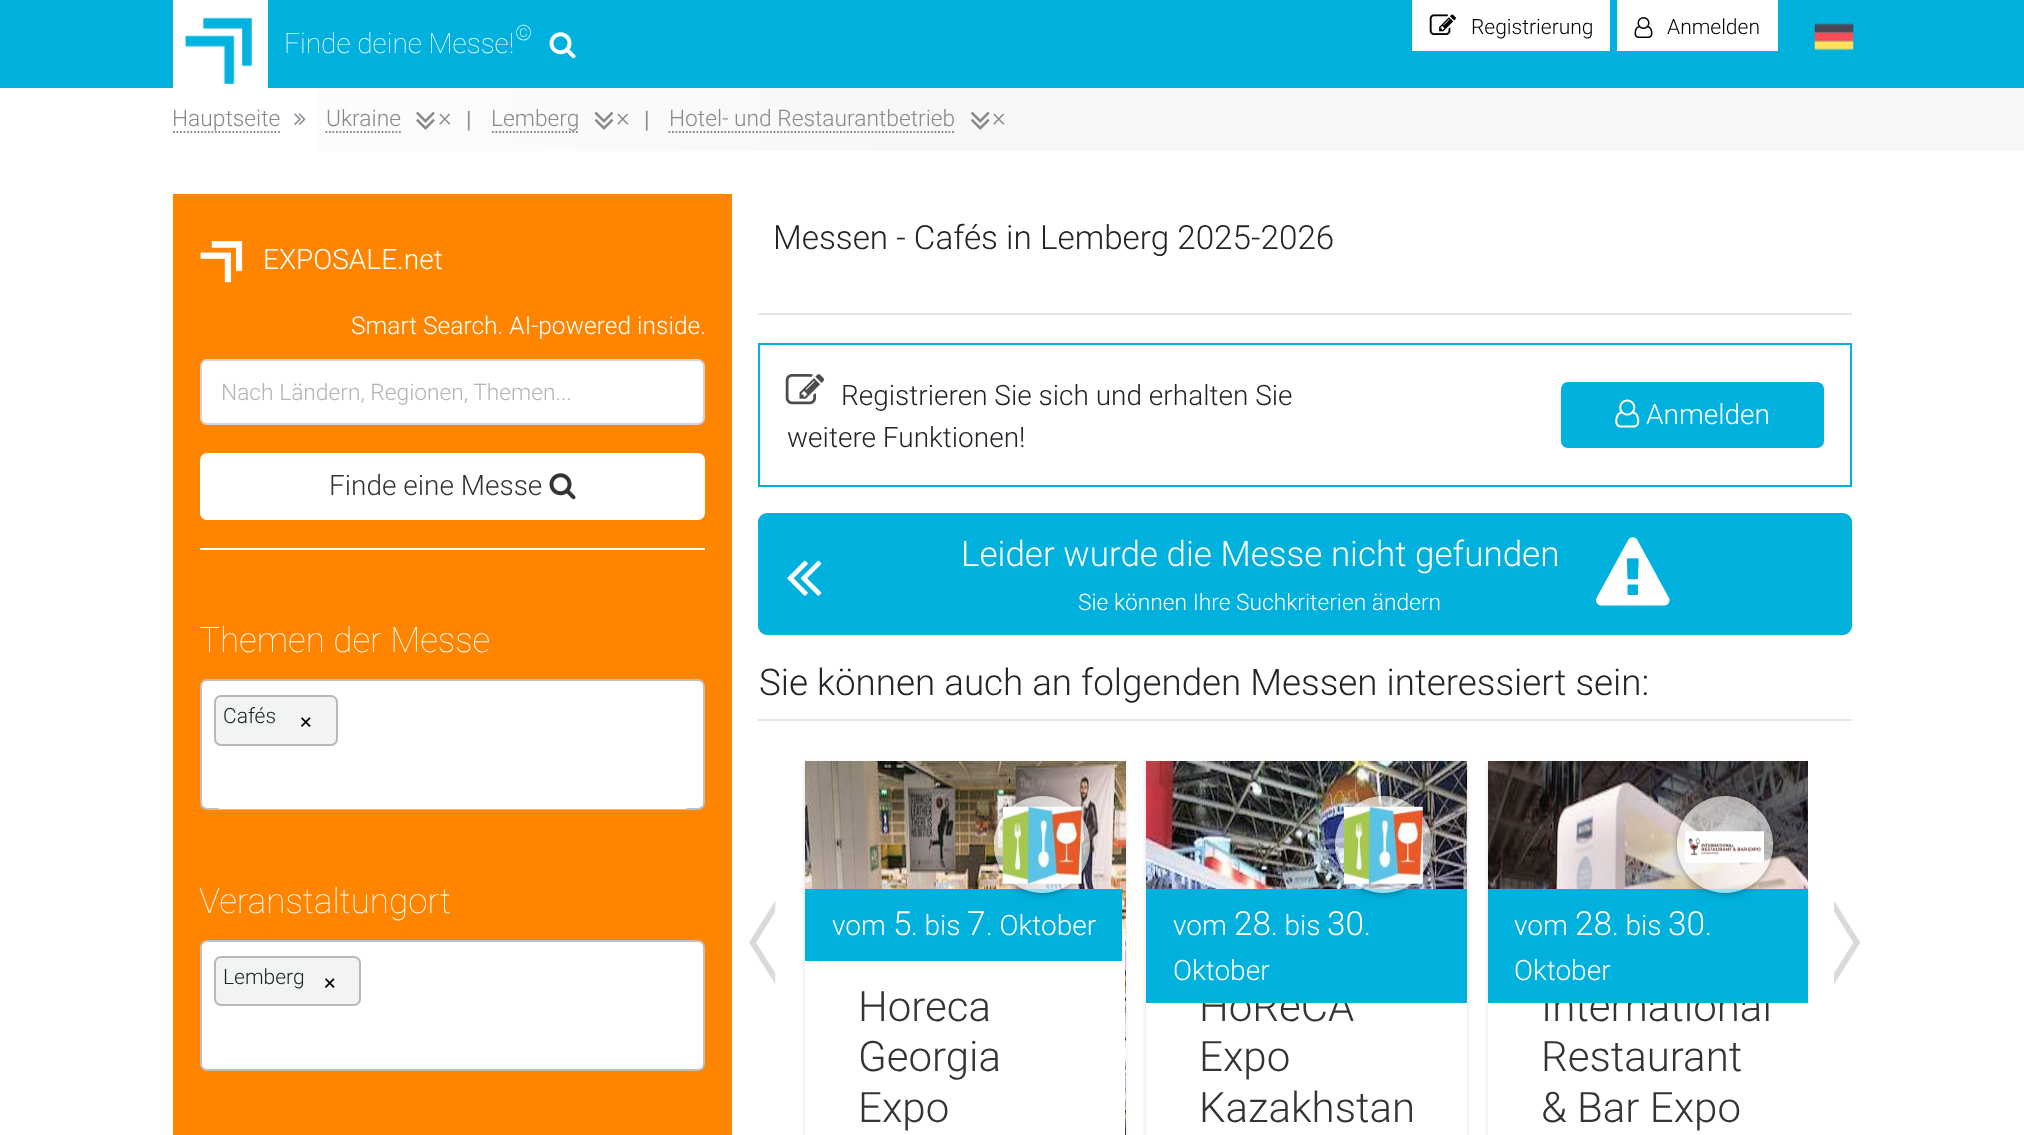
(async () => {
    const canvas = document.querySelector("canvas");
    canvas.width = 2024;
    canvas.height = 1135;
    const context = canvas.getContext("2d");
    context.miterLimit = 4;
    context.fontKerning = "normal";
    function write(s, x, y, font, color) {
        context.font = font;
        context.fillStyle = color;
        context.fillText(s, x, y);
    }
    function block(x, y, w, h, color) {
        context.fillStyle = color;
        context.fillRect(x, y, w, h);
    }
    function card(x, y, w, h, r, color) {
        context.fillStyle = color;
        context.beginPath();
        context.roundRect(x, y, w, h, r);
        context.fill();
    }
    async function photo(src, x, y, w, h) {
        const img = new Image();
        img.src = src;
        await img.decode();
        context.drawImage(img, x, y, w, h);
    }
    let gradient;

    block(0, 0, 2024, 1135, "rgb(255, 255, 255)");
    block(0, 0, 2024, 88, "rgb(0, 176, 221)");
    block(173, 0, 95, 88, "rgb(255, 255, 255)");
    await photo("media/1.png", 184, 17, 68, 68);
    write("Finde deine Messe!", 284, 53, "100 28px Roboto", "rgb(255, 255, 255)");
    write("©", 515, 40, "100 21px Roboto", "rgb(255, 255, 255)");
    await photo("media/2.png", 549, 32, 27, 27);
    block(1412, 0, 198, 51, "rgb(255, 255, 255)");
    await photo("media/3.png", 1429, 14, 27, 21);
    write("Registrierung", 1471, 34, "300 21px Roboto", "rgb(0, 0, 0)");
    block(1617, 0, 161, 51, "rgb(255, 255, 255)");
    await photo("media/4.png", 1634, 17, 19, 21);
    write("Anmelden", 1667, 34, "300 21px Roboto", "rgb(0, 0, 0)");
    await photo("media/5.png", 1814, 23, 40, 28);
    gradient = context.createLinearGradient(0, 119, 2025, 119);
    gradient.addColorStop(0, "rgb(255, 255, 255)");
    gradient.addColorStop(0.5, "rgb(247, 247, 247)");
    gradient.addColorStop(1, "rgb(247, 247, 247)");
    context.fillStyle = gradient;
    context.fillRect(316, 88, 1708, 63);
    write("Hauptseite", 172, 126, "300 22.75px Roboto", "rgb(138, 136, 136)");
    context.beginPath();
    context.moveTo(173, 132);
    context.lineTo(280, 132);
    context.strokeStyle = "rgb(138, 136, 136)";
    context.lineWidth = 1.8;
    context.setLineDash([1.75, 1.75]);
    context.stroke();
    await photo("media/6.png", 294, 113, 12, 12);
    write("Ukraine", 326, 126, "300 22.75px Roboto", "rgb(138, 136, 136)");
    context.beginPath();
    context.moveTo(325.5, 132);
    context.lineTo(401, 132);
    context.stroke();
    await photo("media/7.png", 416, 111, 19, 19);
    write("×", 438, 126, "300 26px Roboto", "rgb(138, 136, 136)");
    write("|", 466, 126, "21px Liberation Sans", "rgb(134, 142, 150)");
    write("Lemberg", 491, 126, "300 22.75px Roboto", "rgb(138, 136, 136)");
    context.beginPath();
    context.moveTo(492, 132);
    context.lineTo(579, 132);
    context.stroke();
    await photo("media/8.png", 594, 111, 20, 19);
    write("×", 616, 126, "300 26px Roboto", "rgb(138, 136, 136)");
    write("|", 644, 126, "21px Liberation Sans", "rgb(134, 142, 150)");
    write("Hotel- und Restaurantbetrieb", 669, 126, "300 22.75px Roboto", "rgb(138, 136, 136)");
    context.beginPath();
    context.moveTo(668.5, 132);
    context.lineTo(955.5, 132);
    context.stroke();
    await photo("media/9.png", 971, 111, 19, 19);
    write("×", 992, 126, "300 26px Roboto", "rgb(138, 136, 136)");
    block(173, 194, 559, 941, "rgb(255, 132, 0)");
    await photo("media/10.png", 200, 241, 43, 42);
    write("EXPOSALE.net", 263, 269, "300 28px Roboto", "rgb(255, 255, 255)");
    write("Smart Search. AI-powered inside.", 351, 334, "300 24.5px Roboto", "rgb(255, 255, 255)");
    context.beginPath();
    context.roundRect(201, 360, 503, 64, 6);
    context.fill();
    context.strokeStyle = "rgb(206, 212, 218)";
    context.lineWidth = 2;
    context.setLineDash([]);
    context.stroke();
    write("Nach Ländern, Regionen, Themen...", 221, 400, "300 22.75px Roboto", "rgb(178, 180, 179)");
    card(200, 453, 505, 67, 7, "rgb(255, 255, 255)");
    write("Finde eine Messe", 329, 495, "300 28px Roboto", "rgb(52, 52, 52)");
    await photo("media/11.png", 549, 473, 27, 27);
    block(200, 548, 505, 2, "rgb(255, 255, 255)");
    write("Themen der Messe", 199, 652, "100 35px Roboto", "rgb(255, 255, 255)");
    context.beginPath();
    context.roundRect(201, 680, 503, 129, 6);
    context.fill();
    context.strokeStyle = "rgb(191, 191, 191)";
    context.stroke();
    context.fillStyle = "rgb(242, 243, 243)";
    context.beginPath();
    context.roundRect(215, 696, 122, 49, 6);
    context.fill();
    context.strokeStyle = "rgb(182, 184, 185)";
    context.stroke();
    write("Cafés", 223, 723, "300 21px Roboto", "rgb(33, 37, 41)");
    write("×", 300, 728, "bold 21px Roboto", "rgb(0, 0, 0)");
    card(214, 746, 477, 63, 7, "rgb(255, 255, 255)");
    write("Veranstaltungort", 199, 913, "100 35px Roboto", "rgb(255, 255, 255)");
    context.beginPath();
    context.roundRect(201, 941, 503, 129, 6);
    context.fill();
    context.strokeStyle = "rgb(191, 191, 191)";
    context.stroke();
    context.fillStyle = "rgb(242, 243, 243)";
    context.beginPath();
    context.roundRect(215, 957, 145, 48, 6);
    context.fill();
    context.strokeStyle = "rgb(182, 184, 185)";
    context.stroke();
    write("Lemberg", 223, 984, "300 21px Roboto", "rgb(33, 37, 41)");
    write("×", 324, 989, "bold 21px Roboto", "rgb(0, 0, 0)");
    write("Messen - Cafés in Lemberg 2025-2026", 773, 249, "300 33.25px Roboto", "rgb(33, 37, 41)");
    block(758, 313, 1094, 2, "rgb(230, 230, 230)");
    context.strokeStyle = "rgb(0, 176, 221)";
    context.strokeRect(759, 344, 1092, 142);
    await photo("media/12.png", 785, 374, 40, 31);
    write("Registrieren Sie sich und erhalten Sie", 841, 405, "300 28px Roboto", "rgb(33, 37, 41)");
    write("weitere Funktionen!", 787, 447, "300 28px Roboto", "rgb(33, 37, 41)");
    context.fillStyle = "rgb(0, 176, 221)";
    context.beginPath();
    context.roundRect(1562, 383, 261, 64, 6);
    context.fill();
    context.stroke();
    await photo("media/13.png", 1615, 399, 25, 29);
    write("Anmelden", 1646, 424, "300 28px Roboto", "rgb(255, 255, 255)");
    context.fillStyle = "rgb(0, 176, 221)";
    context.beginPath();
    context.roundRect(759, 514, 1092, 120, 8);
    context.fill();
    context.stroke();
    await photo("media/14.png", 787, 560, 35, 36);
    write("Leider wurde die Messe nicht gefunden", 961, 566, "300 35px Roboto", "rgb(255, 255, 255)");
    await photo("media/15.png", 1596, 537, 74, 69);
    write("Sie können Ihre Suchkriterien ändern", 1078, 610, "300 22.75px Roboto", "rgb(255, 255, 255)");
    write("Sie können auch an folgenden Messen interessiert sein:", 759, 695, "300 36.75px Roboto", "rgb(33, 37, 41)");
    block(758, 719, 1094, 2, "rgb(230, 230, 230)");
    await photo("media/16.png", 749, 901, 27, 83);
    await photo("media/17.png", 1834, 901, 27, 83);
    context.fillStyle = "rgba(0, 0, 0, 0.15)";
    context.filter = "blur(2px)";
    context.beginPath();
    context.rect(805, 763, 320, 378);
    context.fill();
    context.filter = "none";
    await photo("media/18.png", 805, 761, 321, 374);
    block(805, 929, 320, 206, "rgb(255, 255, 255)");
    block(805, 889, 317, 72, "rgb(0, 176, 221)");
    context.save();
    context.beginPath();
    context.moveTo(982, 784);
    context.lineTo(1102, 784);
    context.lineTo(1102, 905);
    context.lineTo(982, 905);
    context.closePath();
    context.moveTo(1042, 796);
    context.bezierCurveTo(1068.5, 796, 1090, 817.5, 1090, 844);
    context.lineTo(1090, 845);
    context.bezierCurveTo(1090, 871.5, 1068.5, 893, 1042, 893);
    context.bezierCurveTo(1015.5, 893, 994, 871.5, 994, 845);
    context.lineTo(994, 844);
    context.bezierCurveTo(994, 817.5, 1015.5, 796, 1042, 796);
    context.closePath();
    context.clip("evenodd");
    context.fillStyle = "rgba(0, 0, 0, 0.43)";
    context.filter = "blur(3.5px)";
    context.beginPath();
    context.roundRect(994, 796, 96, 97, 48);
    context.fill();
    context.filter = "none";
    context.restore();
    card(994, 796, 96, 97, 48, "rgba(255, 255, 255, 0.6)");
    await photo("media/19.png", 1002, 806, 80, 78);
    write("vom", 832, 935, "300 28px Roboto", "rgb(255, 255, 255)");
    write("5", 893, 935, "300 33.25px Roboto", "rgb(255, 255, 255)");
    write(". bis", 911, 935, "300 28px Roboto", "rgb(255, 255, 255)");
    write("7", 967, 935, "300 33.25px Roboto", "rgb(255, 255, 255)");
    write(". Oktober", 986, 935, "300 28px Roboto", "rgb(255, 255, 255)");
    write("Horeca", 858, 1021, "300 42px Roboto", "rgb(52, 52, 52)");
    write("Georgia", 858, 1071, "300 42px Roboto", "rgb(52, 52, 52)");
    write("Expo", 858, 1122, "300 42px Roboto", "rgb(52, 52, 52)");
    context.fillStyle = "rgba(0, 0, 0, 0.15)";
    context.filter = "blur(2px)";
    context.beginPath();
    context.rect(1146, 763, 321, 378);
    context.fill();
    context.filter = "none";
    await photo("media/20.png", 1146, 761, 321, 128);
    block(1146, 1003, 321, 132, "rgb(255, 255, 255)");
    write("HoReCA", 1199, 1021, "300 42px Roboto", "rgb(52, 52, 52)");
    block(1146, 889, 321, 114, "rgb(0, 176, 221)");
    context.save();
    context.beginPath();
    context.moveTo(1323, 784);
    context.lineTo(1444, 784);
    context.lineTo(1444, 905);
    context.lineTo(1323, 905);
    context.closePath();
    context.moveTo(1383.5, 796);
    context.bezierCurveTo(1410.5, 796, 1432, 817.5, 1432, 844.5);
    context.bezierCurveTo(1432, 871.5, 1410.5, 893, 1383.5, 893);
    context.bezierCurveTo(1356.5, 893, 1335, 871.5, 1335, 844.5);
    context.bezierCurveTo(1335, 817.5, 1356.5, 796, 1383.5, 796);
    context.closePath();
    context.clip("evenodd");
    context.fillStyle = "rgba(0, 0, 0, 0.43)";
    context.filter = "blur(3.5px)";
    context.beginPath();
    context.roundRect(1335, 796, 97, 97, 48.5);
    context.fill();
    context.filter = "none";
    context.restore();
    context.fillStyle = "rgba(255, 255, 255, 0.6)";
    context.beginPath();
    context.arc(1383.5, 844.5, 48.5, 0, Math.PI * 2);
    context.fill();
    await photo("media/21.png", 1344, 806, 79, 78);
    write("vom", 1173, 935, "300 28px Roboto", "rgb(255, 255, 255)");
    write("28", 1234, 935, "300 33.25px Roboto", "rgb(255, 255, 255)");
    write(". bis", 1271, 935, "300 28px Roboto", "rgb(255, 255, 255)");
    write("30", 1327, 935, "300 33.25px Roboto", "rgb(255, 255, 255)");
    write(".", 1364, 935, "300 28px Roboto", "rgb(255, 255, 255)");
    write("Oktober", 1173, 980, "300 28px Roboto", "rgb(255, 255, 255)");
    write("Expo", 1199, 1071, "300 42px Roboto", "rgb(52, 52, 52)");
    write("Kazakhstan", 1199, 1122, "300 42px Roboto", "rgb(52, 52, 52)");
    context.save();
    context.beginPath();
    context.rect(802, 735, 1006, 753);
    context.clip();
    context.fillStyle = "rgba(0, 0, 0, 0.15)";
    context.filter = "blur(2px)";
    context.beginPath();
    context.rect(1488, 763, 320, 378);
    context.fill();
    context.filter = "none";
    context.restore();
    await photo("media/22.png", 1488, 761, 320, 128);
    block(1488, 1003, 320, 132, "rgb(255, 255, 255)");
    write("International", 1541, 1021, "300 42px Roboto", "rgb(52, 52, 52)");
    block(1488, 889, 320, 114, "rgb(0, 176, 221)");
    context.save();
    context.beginPath();
    context.moveTo(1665, 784);
    context.lineTo(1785, 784);
    context.lineTo(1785, 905);
    context.lineTo(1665, 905);
    context.closePath();
    context.moveTo(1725, 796);
    context.bezierCurveTo(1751.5, 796, 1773, 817.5, 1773, 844);
    context.lineTo(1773, 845);
    context.bezierCurveTo(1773, 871.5, 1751.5, 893, 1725, 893);
    context.bezierCurveTo(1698.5, 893, 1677, 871.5, 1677, 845);
    context.lineTo(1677, 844);
    context.bezierCurveTo(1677, 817.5, 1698.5, 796, 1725, 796);
    context.closePath();
    context.clip("evenodd");
    context.fillStyle = "rgba(0, 0, 0, 0.43)";
    context.filter = "blur(3.5px)";
    context.beginPath();
    context.roundRect(1677, 796, 96, 97, 48);
    context.fill();
    context.filter = "none";
    context.restore();
    card(1677, 796, 96, 97, 48, "rgba(255, 255, 255, 0.6)");
    await photo("media/23.png", 1685, 831, 79, 32);
    write("vom", 1514, 935, "300 28px Roboto", "rgb(255, 255, 255)");
    write("28", 1575, 935, "300 33.25px Roboto", "rgb(255, 255, 255)");
    write(". bis", 1612, 935, "300 28px Roboto", "rgb(255, 255, 255)");
    write("30", 1668, 935, "300 33.25px Roboto", "rgb(255, 255, 255)");
    write(".", 1705, 935, "300 28px Roboto", "rgb(255, 255, 255)");
    write("Oktober", 1514, 980, "300 28px Roboto", "rgb(255, 255, 255)");
    write("Restaurant", 1541, 1071, "300 42px Roboto", "rgb(52, 52, 52)");
    write("& Bar Expo", 1541, 1122, "300 42px Roboto", "rgb(52, 52, 52)");
})();
